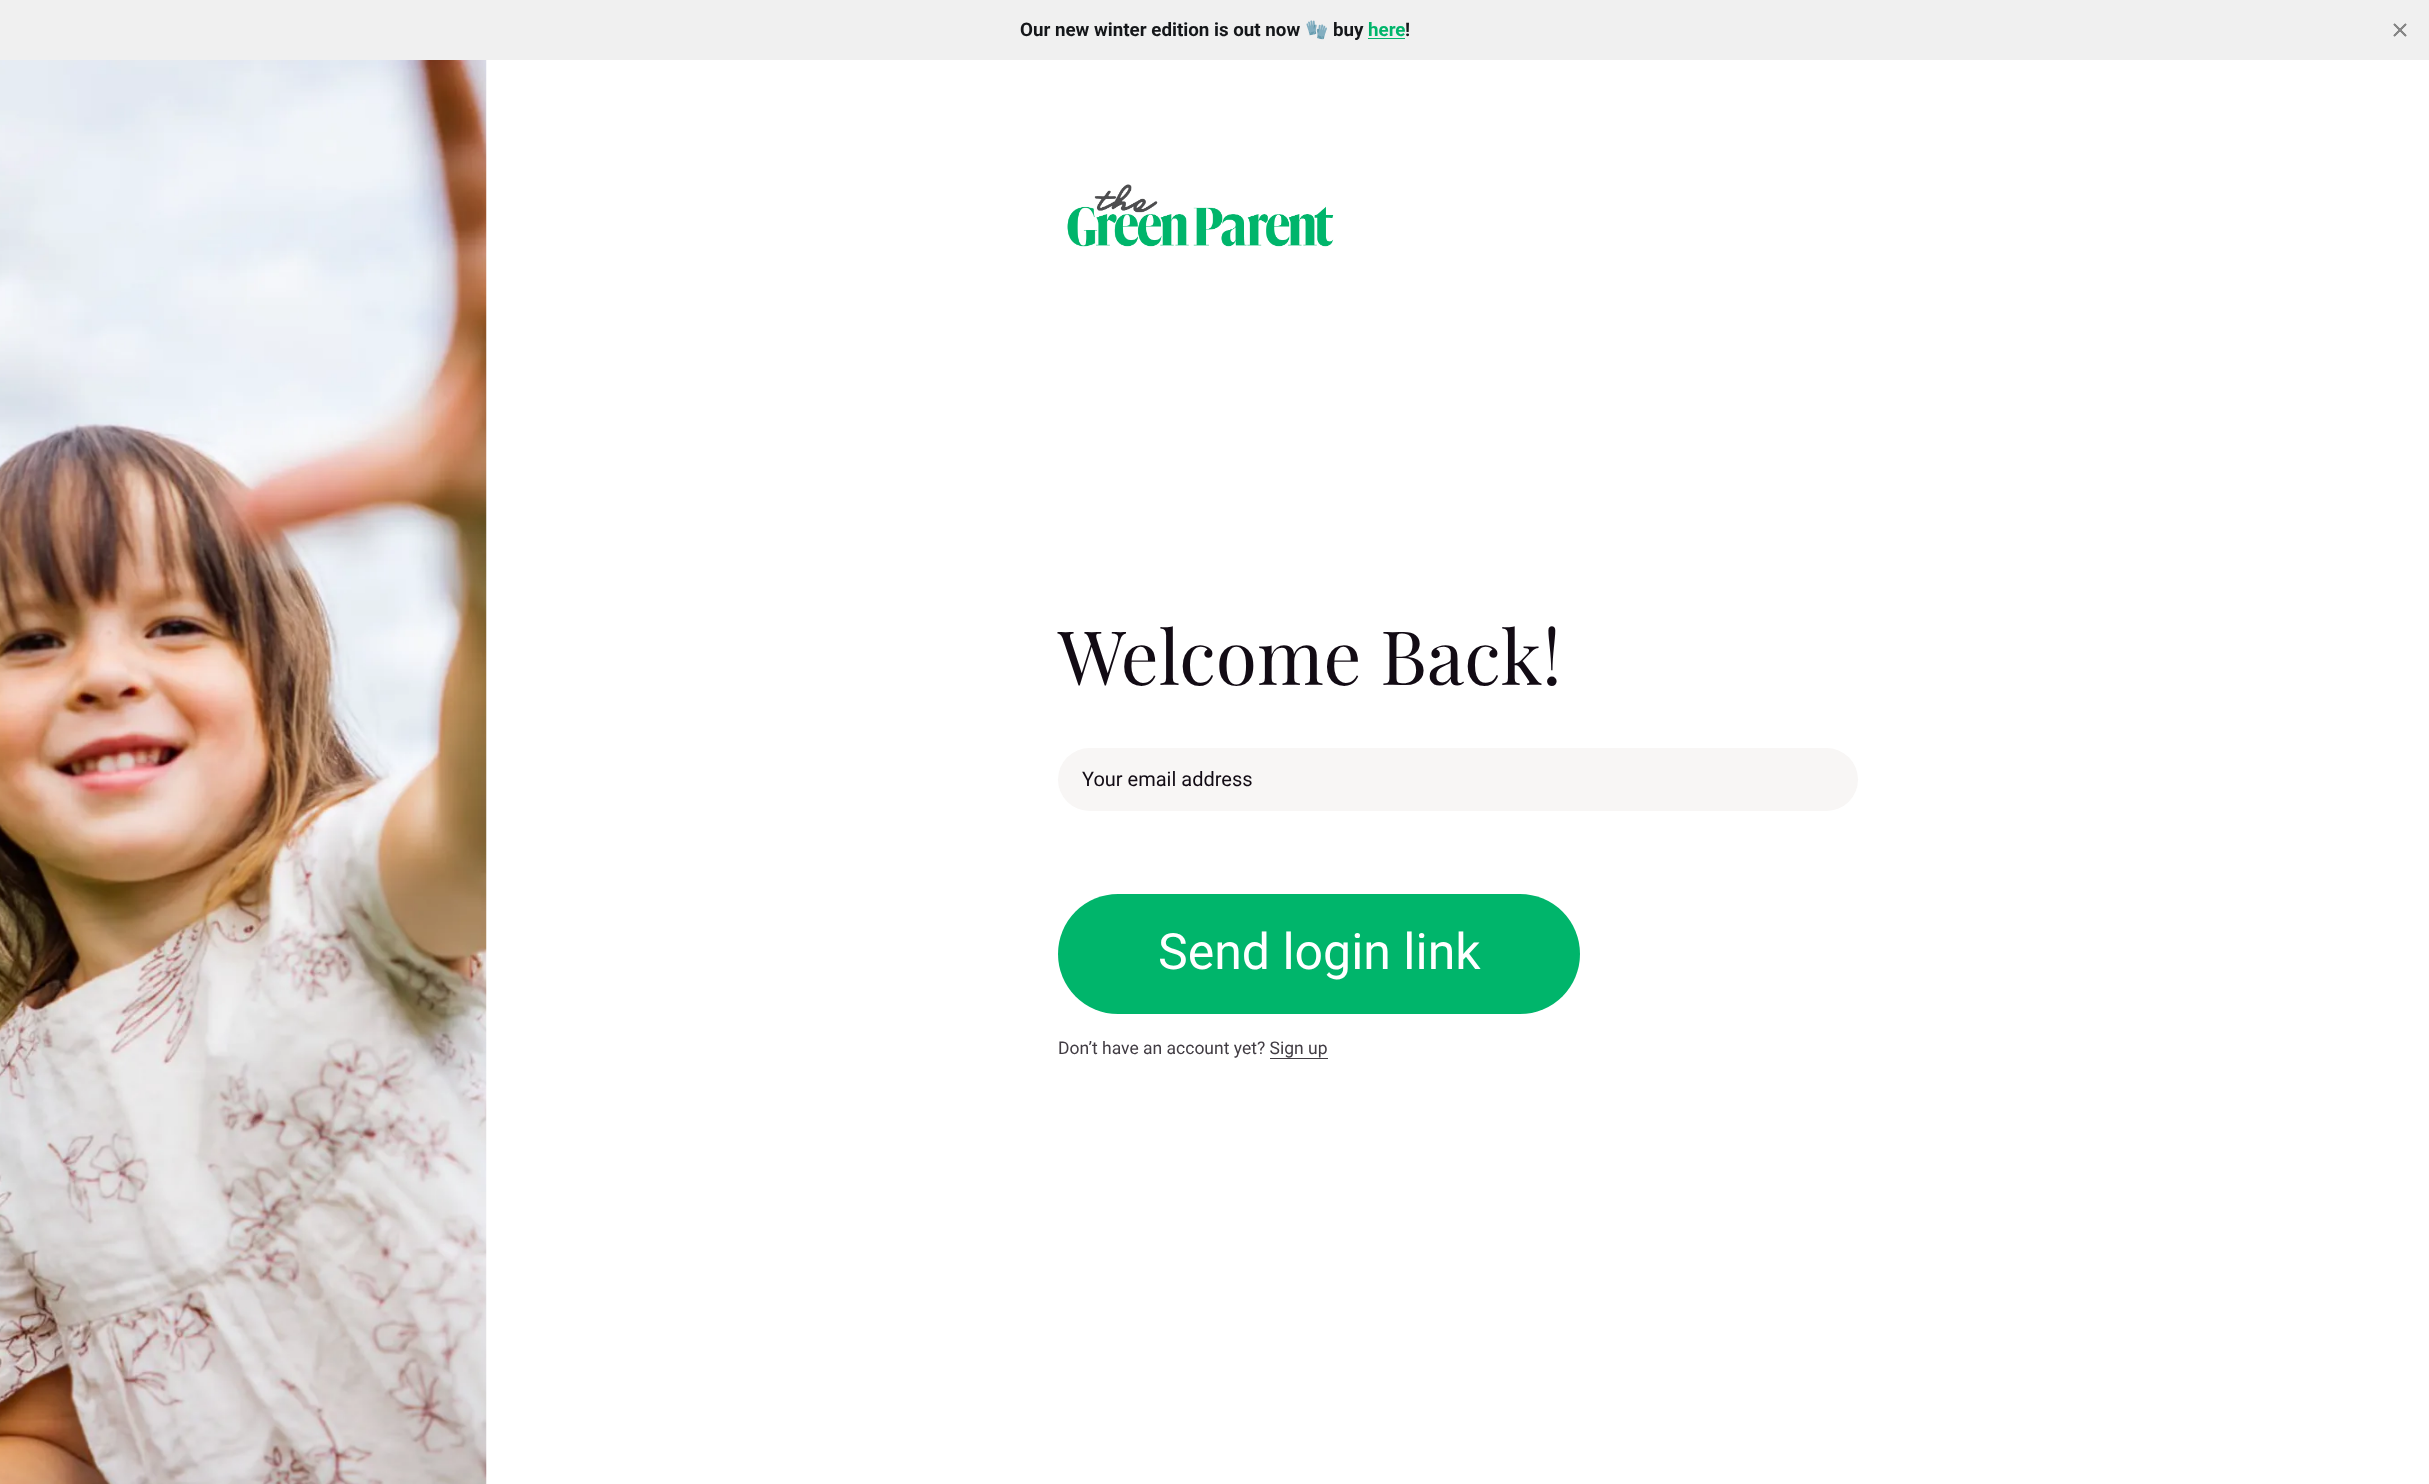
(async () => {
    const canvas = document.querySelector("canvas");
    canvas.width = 2429;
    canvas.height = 1484;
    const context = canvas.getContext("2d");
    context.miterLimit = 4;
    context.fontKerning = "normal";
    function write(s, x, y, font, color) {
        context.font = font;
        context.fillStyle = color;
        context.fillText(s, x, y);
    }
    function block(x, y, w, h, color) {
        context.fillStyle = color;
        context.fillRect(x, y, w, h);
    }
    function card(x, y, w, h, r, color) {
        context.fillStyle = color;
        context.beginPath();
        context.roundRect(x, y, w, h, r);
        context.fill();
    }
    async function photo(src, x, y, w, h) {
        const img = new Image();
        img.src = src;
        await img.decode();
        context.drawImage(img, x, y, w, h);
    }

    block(0, 0, 2429, 1484, "rgb(255, 255, 255)");
    block(0, 0, 2429, 60, "rgb(240, 240, 240)");
    write("Our new winter edition is out now", 1020, 36, "bold 18.75px Roboto", "rgb(21, 23, 26)");
    write("🧤", 1305, 36, "18.75px Noto Color Emoji", "rgb(21, 23, 26)");
    write("buy", 1333, 36, "bold 18.75px Roboto", "rgb(21, 23, 26)");
    write("here", 1368, 36, "bold 18.75px Roboto", "rgb(0, 181, 107)");
    block(1368, 38, 37, 1, "rgb(0, 181, 107)");
    write("!", 1405, 36, "bold 18.75px Roboto", "rgb(21, 23, 26)");
    await photo("media/1.png", 2393, 23, 14, 14);
    await photo("media/2.png", 0, 60, 487, 1424);
    await photo("media/3.png", 1067, 184, 267, 63);
    write("Welcome Back!", 1058, 685, "75px Playfair Display", "rgb(18, 11, 20)");
    card(1058, 748, 800, 63, 31.5, "rgb(248, 246, 245)");
    write("Your email address", 1082, 786, "20px Roboto", "rgb(18, 11, 20)");
    card(1058, 894, 522, 120, 60, "rgb(0, 181, 107)");
    write("Send login link", 1158, 969, "50px Roboto", "rgb(255, 255, 255)");
    write("Don’t have an account yet? Sign up", 1058, 1054, "17.5px Roboto", "rgb(65, 60, 67)");
    block(1270, 1058, 58, 1, "rgb(65, 60, 67)");
})();
